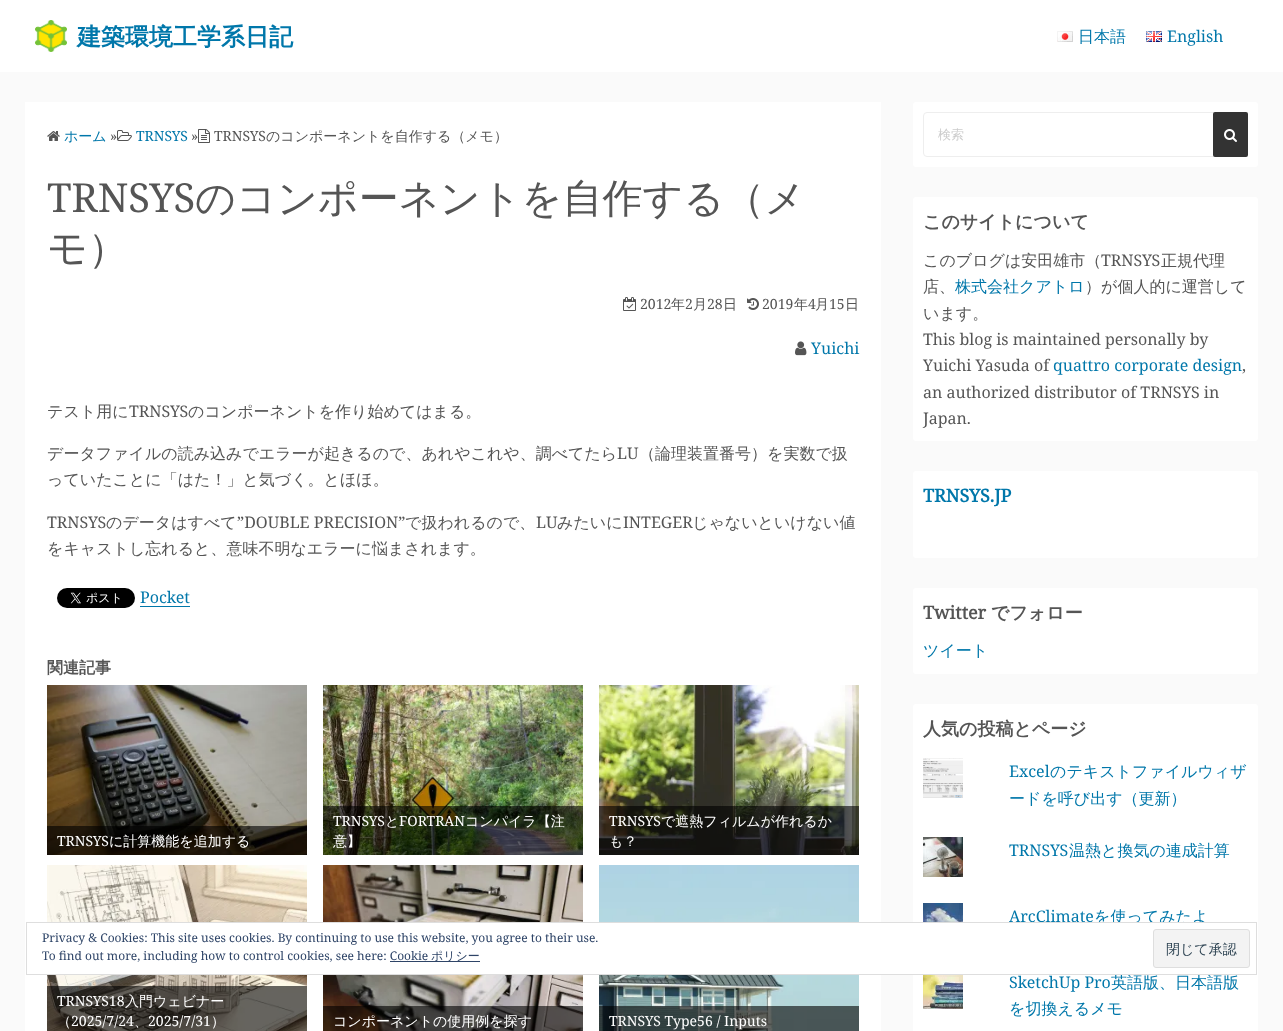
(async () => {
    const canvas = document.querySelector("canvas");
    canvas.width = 1283;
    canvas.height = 1031;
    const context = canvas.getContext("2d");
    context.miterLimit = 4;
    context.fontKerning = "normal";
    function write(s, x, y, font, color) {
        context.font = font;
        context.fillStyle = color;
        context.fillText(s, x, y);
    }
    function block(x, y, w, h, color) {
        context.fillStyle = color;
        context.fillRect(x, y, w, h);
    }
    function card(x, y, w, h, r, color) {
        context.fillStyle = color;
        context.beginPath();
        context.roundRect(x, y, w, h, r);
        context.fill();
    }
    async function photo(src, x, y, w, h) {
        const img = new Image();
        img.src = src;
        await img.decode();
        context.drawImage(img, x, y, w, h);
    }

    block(0, 0, 1283, 1031, "rgb(250, 250, 250)");
    block(0, 0, 1283, 72, "rgb(255, 255, 255)");
    await photo("media/1.png", 35, 20, 32, 32);
    write("建築環境工学系日記", 77, 45, "bold 24px WenQuanYi Zen Hei", "rgb(0, 119, 170)");
    await photo("media/2.png", 1057, 31, 16, 11);
    write("日本語", 1078, 42, "500 16px WenQuanYi Zen Hei", "rgb(0, 119, 170)");
    await photo("media/3.png", 1146, 31, 16, 11);
    write("English", 1167, 42, "16px Noto Serif", "rgb(0, 119, 170)");
    block(25, 102, 856, 929, "rgb(255, 255, 255)");
    await photo("media/4.png", 47, 131, 13, 10);
    write("ホーム", 64, 141, "500 14px WenQuanYi Zen Hei", "rgb(0, 119, 170)");
    write("»", 110, 141, "14px Noto Serif", "rgb(85, 85, 85)");
    await photo("media/5.png", 117, 130, 15, 11);
    write("TRNSYS", 136, 141, "14px Noto Serif", "rgb(0, 119, 170)");
    write("»", 191, 141, "14px Noto Serif", "rgb(85, 85, 85)");
    await photo("media/6.png", 198, 129, 12, 14);
    write("TRNSYS", 214, 141, "14px Noto Serif", "rgb(85, 85, 85)");
    write("のコンポーネントを自作する（メモ）", 266, 141, "500 14px WenQuanYi Zen Hei", "rgb(85, 85, 85)");
    write("TRNSYS", 47, 212, "40px Noto Serif", "rgb(85, 85, 85)");
    write("のコンポーネントを自作する（メ", 195, 212, "500 40px WenQuanYi Zen Hei", "rgb(85, 85, 85)");
    write("モ）", 47, 262, "500 40px WenQuanYi Zen Hei", "rgb(85, 85, 85)");
    await photo("media/7.png", 623, 297, 13, 14);
    write("2012", 640, 309, "14px Noto Serif", "rgb(85, 85, 85)");
    write("年", 671, 309, "500 14px WenQuanYi Zen Hei", "rgb(85, 85, 85)");
    write("2", 685, 309, "14px Noto Serif", "rgb(85, 85, 85)");
    write("月", 693, 309, "500 14px WenQuanYi Zen Hei", "rgb(85, 85, 85)");
    write("28", 707, 309, "14px Noto Serif", "rgb(85, 85, 85)");
    write("日", 723, 309, "500 14px WenQuanYi Zen Hei", "rgb(85, 85, 85)");
    await photo("media/8.png", 747, 298, 12, 12);
    write("2019", 762, 309, "14px Noto Serif", "rgb(85, 85, 85)");
    write("年", 794, 309, "500 14px WenQuanYi Zen Hei", "rgb(85, 85, 85)");
    write("4", 808, 309, "14px Noto Serif", "rgb(85, 85, 85)");
    write("月", 815, 309, "500 14px WenQuanYi Zen Hei", "rgb(85, 85, 85)");
    write("15", 829, 309, "14px Noto Serif", "rgb(85, 85, 85)");
    write("日", 845, 309, "500 14px WenQuanYi Zen Hei", "rgb(85, 85, 85)");
    await photo("media/9.png", 795, 341, 12, 15);
    write("Yuichi", 811, 354, "16px Noto Serif", "rgb(0, 119, 170)");
    write("テスト用に", 47, 417, "500 16px WenQuanYi Zen Hei", "rgb(85, 85, 85)");
    write("TRNSYS", 129, 417, "16px Noto Serif", "rgb(85, 85, 85)");
    write("のコンポーネントを作り始めてはまる。", 188, 417, "500 16px WenQuanYi Zen Hei", "rgb(85, 85, 85)");
    write("データファイルの読み込みでエラーが起きるので、あれやこれや、調べてたら", 47, 459, "500 16px WenQuanYi Zen Hei", "rgb(85, 85, 85)");
    write("LU", 617, 459, "16px Noto Serif", "rgb(85, 85, 85)");
    write("（論理装置番号）を実数で扱", 639, 459, "500 16px WenQuanYi Zen Hei", "rgb(85, 85, 85)");
    write("っていたことに「はた！」と気づく。とほほ。", 47, 485, "500 16px WenQuanYi Zen Hei", "rgb(85, 85, 85)");
    write("TRNSYS", 47, 528, "16px Noto Serif", "rgb(85, 85, 85)");
    write("のデータはすべて", 106, 528, "500 16px WenQuanYi Zen Hei", "rgb(85, 85, 85)");
    write("”DOUBLE PRECISION”", 237, 528, "16px Noto Serif", "rgb(85, 85, 85)");
    write("で扱われるので、", 405, 528, "500 16px WenQuanYi Zen Hei", "rgb(85, 85, 85)");
    write("LU", 536, 528, "16px Noto Serif", "rgb(85, 85, 85)");
    write("みたいに", 557, 528, "500 16px WenQuanYi Zen Hei", "rgb(85, 85, 85)");
    write("INTEGER", 623, 528, "16px Noto Serif", "rgb(85, 85, 85)");
    write("じゃないといけない値", 692, 528, "500 16px WenQuanYi Zen Hei", "rgb(85, 85, 85)");
    write("をキャストし忘れると、意味不明なエラーに悩まされます。", 47, 554, "500 16px WenQuanYi Zen Hei", "rgb(85, 85, 85)");
    await photo("media/10.png", 57, 588, 78, 20);
    write("Pocket", 140, 603, "16px Noto Serif", "rgb(0, 119, 170)");
    block(140, 606, 50, 1, "rgb(0, 119, 170)");
    write("関連記事", 47, 673, "bold 16px WenQuanYi Zen Hei", "rgb(85, 85, 85)");
    await photo("media/11.png", 47, 685, 260, 170);
    block(47, 826, 260, 29, "rgba(0, 0, 0, 0.6)");
    write("TRNSYS", 57, 846, "14px Noto Serif", "rgb(255, 255, 255)");
    write("に計算機能を追加する", 109, 846, "500 14px WenQuanYi Zen Hei", "rgb(255, 255, 255)");
    await photo("media/12.png", 323, 685, 260, 170);
    block(323, 806, 260, 49, "rgba(0, 0, 0, 0.6)");
    write("TRNSYS", 333, 826, "14px Noto Serif", "rgb(255, 255, 255)");
    write("と", 385, 826, "500 14px WenQuanYi Zen Hei", "rgb(255, 255, 255)");
    write("FORTRAN", 399, 826, "14px Noto Serif", "rgb(255, 255, 255)");
    write("コンパイラ【注", 465, 826, "500 14px WenQuanYi Zen Hei", "rgb(255, 255, 255)");
    write("意】", 333, 846, "500 14px WenQuanYi Zen Hei", "rgb(255, 255, 255)");
    await photo("media/13.png", 599, 685, 260, 170);
    block(599, 806, 260, 49, "rgba(0, 0, 0, 0.6)");
    write("TRNSYS", 609, 826, "14px Noto Serif", "rgb(255, 255, 255)");
    write("で遮熱フィルムが作れるか", 661, 826, "500 14px WenQuanYi Zen Hei", "rgb(255, 255, 255)");
    write("も？", 609, 846, "500 14px WenQuanYi Zen Hei", "rgb(255, 255, 255)");
    await photo("media/14.png", 47, 865, 260, 166);
    block(47, 986, 260, 45, "rgba(0, 0, 0, 0.6)");
    write("TRNSYS18", 57, 1006, "14px Noto Serif", "rgb(255, 255, 255)");
    write("入門ウェビナー", 125, 1006, "500 14px WenQuanYi Zen Hei", "rgb(255, 255, 255)");
    write("（", 57, 1026, "500 14px WenQuanYi Zen Hei", "rgb(255, 255, 255)");
    write("2025/7/24", 71, 1026, "14px Noto Serif", "rgb(255, 255, 255)");
    write("、", 134, 1026, "500 14px WenQuanYi Zen Hei", "rgb(255, 255, 255)");
    write("2025/7/31", 148, 1026, "14px Noto Serif", "rgb(255, 255, 255)");
    write("）", 211, 1026, "500 14px WenQuanYi Zen Hei", "rgb(255, 255, 255)");
    await photo("media/15.png", 323, 865, 260, 166);
    block(323, 1006, 260, 25, "rgba(0, 0, 0, 0.6)");
    write("コンポーネントの使用例を探す", 333, 1026, "500 14px WenQuanYi Zen Hei", "rgb(255, 255, 255)");
    await photo("media/16.png", 599, 865, 260, 166);
    block(599, 1006, 260, 25, "rgba(0, 0, 0, 0.6)");
    write("TRNSYS Type56 / Inputs", 609, 1026, "14px Noto Serif", "rgb(255, 255, 255)");
    card(913, 102, 345, 65, 3, "rgb(255, 255, 255)");
    context.beginPath();
    context.roundRect(923.5, 112.5, 324, 44, 3.5);
    context.strokeStyle = "rgb(238, 238, 238)";
    context.stroke();
    write("検索", 938, 139, "500 13px WenQuanYi Zen Hei", "rgb(204, 204, 204)");
    card(1213, 112, 35, 45, 2, "rgb(51, 51, 51)");
    await photo("media/17.png", 1224, 129, 13, 13);
    card(913, 197, 345, 244, 3, "rgb(255, 255, 255)");
    write("このサイトについて", 923, 228, "bold 18px WenQuanYi Zen Hei", "rgb(85, 85, 85)");
    write("このブログは安田雄市（", 923, 266, "500 16px WenQuanYi Zen Hei", "rgb(85, 85, 85)");
    write("TRNSYS", 1101, 266, "16px Noto Serif", "rgb(85, 85, 85)");
    write("正規代理", 1161, 266, "500 16px WenQuanYi Zen Hei", "rgb(85, 85, 85)");
    write("店、", 923, 292, "500 16px WenQuanYi Zen Hei", "rgb(85, 85, 85)");
    write("株式会社クアトロ", 955, 292, "500 16px WenQuanYi Zen Hei", "rgb(0, 119, 170)");
    write("）が個人的に運営して", 1085, 292, "500 16px WenQuanYi Zen Hei", "rgb(85, 85, 85)");
    write("います。", 923, 319, "500 16px WenQuanYi Zen Hei", "rgb(85, 85, 85)");
    write("This blog is maintained personally by", 923, 345, "16px Noto Serif", "rgb(85, 85, 85)");
    write("Yuichi Yasuda of", 923, 371, "16px Noto Serif", "rgb(85, 85, 85)");
    write("quattro corporate design", 1053, 371, "16px Noto Serif", "rgb(0, 119, 170)");
    write(",", 1242, 371, "16px Noto Serif", "rgb(85, 85, 85)");
    write("an authorized distributor of TRNSYS in", 923, 398, "16px Noto Serif", "rgb(85, 85, 85)");
    write("Japan.", 923, 424, "16px Noto Serif", "rgb(85, 85, 85)");
    card(913, 471, 345, 87, 3, "rgb(255, 255, 255)");
    write("TRNSYS.JP", 923, 502, "bold 18px Noto Serif", "rgb(0, 119, 170)");
    card(913, 588, 345, 86, 3, "rgb(255, 255, 255)");
    write("Twitter", 923, 619, "bold 18px Noto Serif", "rgb(85, 85, 85)");
    write("でフォロー", 991, 619, "bold 18px WenQuanYi Zen Hei", "rgb(85, 85, 85)");
    write("ツイート", 923, 656, "500 16px WenQuanYi Zen Hei", "rgb(0, 119, 170)");
    card(913, 704, 345, 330, 3, "rgb(255, 255, 255)");
    write("人気の投稿とページ", 923, 735, "bold 18px WenQuanYi Zen Hei", "rgb(85, 85, 85)");
    await photo("media/18.png", 923, 758, 40, 40);
    write("Excel", 1009, 777, "16px Noto Serif", "rgb(0, 119, 170)");
    write("のテキストファイルウィザ", 1050, 777, "500 16px WenQuanYi Zen Hei", "rgb(0, 119, 170)");
    write("ードを呼び出す（更新）", 1009, 804, "500 16px WenQuanYi Zen Hei", "rgb(0, 119, 170)");
    await photo("media/19.png", 923, 837, 40, 40);
    write("TRNSYS", 1009, 856, "16px Noto Serif", "rgb(0, 119, 170)");
    write("温熱と換気の連成計算", 1069, 856, "500 16px WenQuanYi Zen Hei", "rgb(0, 119, 170)");
    await photo("media/20.png", 923, 903, 40, 19);
    write("ArcClimate", 1009, 922, "16px Noto Serif", "rgb(0, 119, 170)");
    write("を使ってみたよ", 1094, 922, "500 16px WenQuanYi Zen Hei", "rgb(0, 119, 170)");
    await photo("media/21.png", 923, 975, 40, 34);
    write("SketchUp Pro", 1009, 988, "16px Noto Serif", "rgb(0, 119, 170)");
    write("英語版、日本語版", 1111, 988, "500 16px WenQuanYi Zen Hei", "rgb(0, 119, 170)");
    write("を切換えるメモ", 1009, 1014, "500 16px WenQuanYi Zen Hei", "rgb(0, 119, 170)");
    block(47, 923, 1158, 51, "rgb(255, 255, 255)");
    context.strokeStyle = "rgb(222, 222, 222)";
    context.strokeRect(26.5, 922.5, 1230, 52);
    write("Privacy & Cookies: This site uses cookies. By continuing to use this website, you agree to their use.", 42, 942, "12px Noto Serif", "rgb(46, 68, 103)");
    write("To find out more, including how to control cookies, see here: Cookie", 42, 960, "12px Noto Serif", "rgb(46, 68, 103)");
    block(390, 961, 90, 1, "rgb(46, 68, 103)");
    write("ポリシー", 431, 960, "500 12px WenQuanYi Zen Hei", "rgb(46, 68, 103)");
    context.fillStyle = "rgb(243, 243, 243)";
    context.beginPath();
    context.roundRect(1153.5, 929.5, 96, 38, 2.5);
    context.fill();
    context.stroke();
    write("閉じて承認", 1166, 954, "500 14px WenQuanYi Zen Hei", "rgb(46, 68, 83)");
})();
